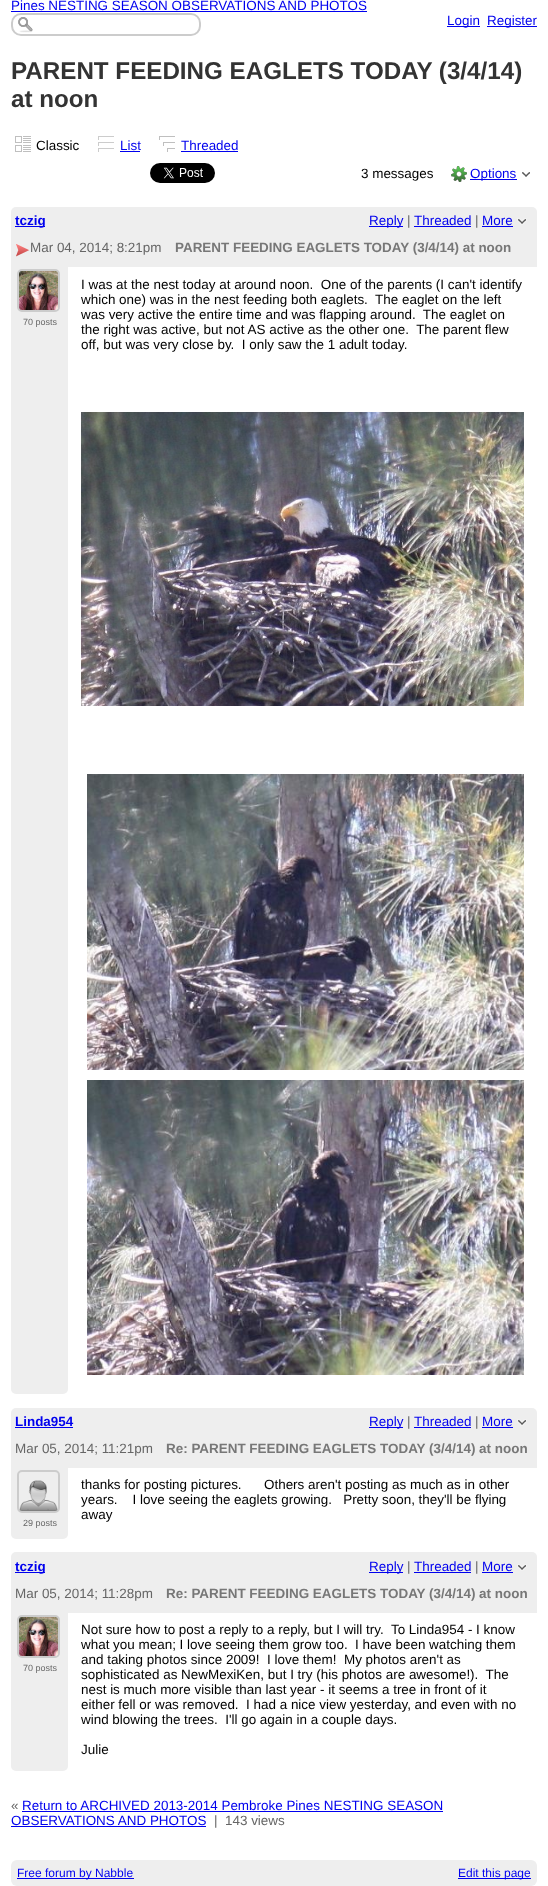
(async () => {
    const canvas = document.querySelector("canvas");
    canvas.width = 548;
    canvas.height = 1886;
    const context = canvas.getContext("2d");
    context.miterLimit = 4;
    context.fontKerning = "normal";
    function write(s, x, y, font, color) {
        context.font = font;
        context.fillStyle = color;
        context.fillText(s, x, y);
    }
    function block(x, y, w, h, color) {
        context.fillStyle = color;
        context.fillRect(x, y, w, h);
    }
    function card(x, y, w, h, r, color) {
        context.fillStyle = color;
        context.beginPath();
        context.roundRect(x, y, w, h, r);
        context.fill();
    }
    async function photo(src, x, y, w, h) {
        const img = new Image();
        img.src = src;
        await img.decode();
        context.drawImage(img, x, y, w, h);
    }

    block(0, 0, 548, 1886, "rgb(255, 255, 255)");
    write("Pines NESTING SEASON OBSERVATIONS AND PHOTOS", 11, 10, "13.45px Liberation Sans", "rgb(0, 0, 238)");
    block(11, 11, 356, 1, "rgb(0, 0, 238)");
    block(447, 26, 33, 1, "rgb(0, 0, 238)");
    write("Login", 447, 25, "13.45px Liberation Sans", "rgb(0, 0, 238)");
    block(487, 26, 50, 1, "rgb(0, 0, 238)");
    write("Register", 487, 25, "13.45px Liberation Sans", "rgb(0, 0, 238)");
    await photo("media/1.png", 18, 17, 15, 16);
    context.beginPath();
    context.roundRect(12, 14, 188, 21, 9);
    context.strokeStyle = "rgb(204, 204, 204)";
    context.lineWidth = 2;
    context.stroke();
    write("PARENT FEEDING EAGLETS TODAY (3/4/14)", 11, 79, "bold 24.2px Liberation Sans", "rgb(51, 51, 51)");
    write("at noon", 11, 107, "bold 24.2px Liberation Sans", "rgb(51, 51, 51)");
    await photo("media/2.png", 15, 136, 16, 16);
    write("Classic", 36, 150, "13.45px Liberation Sans", "rgb(0, 0, 0)");
    await photo("media/3.png", 98, 136, 16, 16);
    write("List", 120, 150, "13.45px Liberation Sans", "rgb(0, 0, 238)");
    block(120, 151, 20, 1, "rgb(0, 0, 238)");
    await photo("media/4.png", 159, 136, 16, 16);
    write("Threaded", 181, 150, "13.45px Liberation Sans", "rgb(0, 0, 238)");
    block(181, 151, 57, 1, "rgb(0, 0, 238)");
    await photo("media/5.png", 150, 163, 65, 20);
    write("3 messages", 361, 178, "13.45px Liberation Sans", "rgb(0, 0, 0)");
    await photo("media/6.png", 451, 166, 16, 16);
    block(470, 179, 47, 1, "rgb(0, 0, 238)");
    write("Options", 470, 178, "13.45px Liberation Sans", "rgb(0, 0, 238)");
    await photo("media/7.png", 522, 172, 8, 5);
    context.fillStyle = "rgb(238, 238, 238)";
    context.beginPath();
    context.roundRect(11, 207, 526, 60, [5, 5, 0, 0]);
    context.fill();
    block(15, 226, 30, 1, "rgb(0, 0, 238)");
    write("tczig", 15, 225, "bold 13.45px Liberation Sans", "rgb(0, 0, 238)");
    block(369, 226, 34, 1, "rgb(0, 0, 238)");
    write("Reply", 369, 225, "13.45px Liberation Sans", "rgb(0, 0, 238)");
    write("|", 407, 225, "13.45px Liberation Sans", "rgb(102, 102, 102)");
    write("Threaded", 414, 225, "13.45px Liberation Sans", "rgb(0, 0, 238)");
    block(414, 226, 57, 1, "rgb(0, 0, 238)");
    write("|", 475, 225, "13.45px Liberation Sans", "rgb(102, 102, 102)");
    write("More", 482, 225, "13.45px Liberation Sans", "rgb(0, 0, 238)");
    block(482, 226, 31, 1, "rgb(0, 0, 238)");
    await photo("media/8.png", 517, 218, 10, 7);
    await photo("media/9.png", 16, 244, 14, 13);
    write("Mar 04, 2014; 8:21pm", 30, 252, "13.45px Liberation Sans", "rgb(102, 102, 102)");
    write("PARENT FEEDING EAGLETS TODAY (3/4/14) at noon", 175, 252, "bold 13.45px Liberation Sans", "rgb(119, 119, 119)");
    context.fillStyle = "rgb(238, 238, 238)";
    context.beginPath();
    context.roundRect(11, 263, 57, 1131, [0, 0, 5, 5]);
    context.fill();
    context.beginPath();
    context.roundRect(18, 270, 41, 41, 4);
    context.stroke();
    await photo("media/10.png", 19, 271, 39, 39);
    write("70 posts", 23, 325, "9px Liberation Sans", "rgb(102, 102, 102)");
    write("I was at the nest today at around noon.  One of the parents (I can't identify", 81, 289, "13.45px Liberation Sans", "rgb(0, 0, 0)");
    write("which one) was in the nest feeding both eaglets.  The eaglet on the left", 81, 304, "13.45px Liberation Sans", "rgb(0, 0, 0)");
    write("was very active the entire time and was flapping around.  The eaglet on", 81, 319, "13.45px Liberation Sans", "rgb(0, 0, 0)");
    write("the right was active, but not AS active as the other one.  The parent flew", 81, 334, "13.45px Liberation Sans", "rgb(0, 0, 0)");
    write("off, but was very close by.  I only saw the 1 adult today.", 81, 349, "13.45px Liberation Sans", "rgb(0, 0, 0)");
    await photo("media/11.png", 81, 412, 443, 294);
    await photo("media/12.png", 87, 774, 437, 296);
    await photo("media/13.png", 87, 1080, 437, 295);
    context.fillStyle = "rgb(238, 238, 238)";
    context.beginPath();
    context.roundRect(11, 1408, 526, 60, [5, 5, 0, 0]);
    context.fill();
    write("Linda954", 15, 1426, "bold 13.45px Liberation Sans", "rgb(0, 0, 238)");
    block(15, 1427, 58, 1, "rgb(0, 0, 238)");
    block(369, 1427, 34, 1, "rgb(0, 0, 238)");
    write("Reply", 369, 1426, "13.45px Liberation Sans", "rgb(0, 0, 238)");
    write("|", 407, 1426, "13.45px Liberation Sans", "rgb(102, 102, 102)");
    write("Threaded", 414, 1426, "13.45px Liberation Sans", "rgb(0, 0, 238)");
    block(414, 1427, 57, 1, "rgb(0, 0, 238)");
    write("|", 475, 1426, "13.45px Liberation Sans", "rgb(102, 102, 102)");
    write("More", 482, 1426, "13.45px Liberation Sans", "rgb(0, 0, 238)");
    block(482, 1427, 31, 1, "rgb(0, 0, 238)");
    await photo("media/8.png", 517, 1419, 10, 7);
    write("Mar 05, 2014; 11:21pm", 15, 1453, "13.45px Liberation Sans", "rgb(102, 102, 102)");
    write("Re: PARENT FEEDING EAGLETS TODAY (3/4/14) at noon", 166, 1453, "bold 13.45px Liberation Sans", "rgb(119, 119, 119)");
    write("thanks for posting pictures.      Others aren't posting as much as in other", 81, 1489, "13.45px Liberation Sans", "rgb(0, 0, 0)");
    write("years.    I love seeing the eaglets growing.   Pretty soon, they'll be flying", 81, 1504, "13.45px Liberation Sans", "rgb(0, 0, 0)");
    write("away", 81, 1519, "13.45px Liberation Sans", "rgb(0, 0, 0)");
    context.fillStyle = "rgb(238, 238, 238)";
    context.beginPath();
    context.roundRect(11, 1464, 57, 75, [0, 0, 5, 5]);
    context.fill();
    context.beginPath();
    context.roundRect(18, 1471, 41, 41, 4);
    context.stroke();
    await photo("media/14.png", 19, 1480, 39, 31);
    write("29 posts", 23, 1526, "9px Liberation Sans", "rgb(102, 102, 102)");
    context.fillStyle = "rgb(238, 238, 238)";
    context.beginPath();
    context.roundRect(11, 1552, 526, 61, [5, 5, 0, 0]);
    context.fill();
    block(15, 1572, 30, 1, "rgb(0, 0, 238)");
    write("tczig", 15, 1571, "bold 13.45px Liberation Sans", "rgb(0, 0, 238)");
    block(369, 1572, 34, 1, "rgb(0, 0, 238)");
    write("Reply", 369, 1571, "13.45px Liberation Sans", "rgb(0, 0, 238)");
    write("|", 407, 1571, "13.45px Liberation Sans", "rgb(102, 102, 102)");
    write("Threaded", 414, 1571, "13.45px Liberation Sans", "rgb(0, 0, 238)");
    block(414, 1572, 57, 1, "rgb(0, 0, 238)");
    write("|", 475, 1571, "13.45px Liberation Sans", "rgb(102, 102, 102)");
    write("More", 482, 1571, "13.45px Liberation Sans", "rgb(0, 0, 238)");
    block(482, 1572, 31, 1, "rgb(0, 0, 238)");
    await photo("media/8.png", 517, 1564, 10, 7);
    write("Mar 05, 2014; 11:28pm", 15, 1598, "13.45px Liberation Sans", "rgb(102, 102, 102)");
    write("Re: PARENT FEEDING EAGLETS TODAY (3/4/14) at noon", 166, 1598, "bold 13.45px Liberation Sans", "rgb(119, 119, 119)");
    context.fillStyle = "rgb(238, 238, 238)";
    context.beginPath();
    context.roundRect(11, 1609, 57, 162, [0, 0, 5, 5]);
    context.fill();
    context.beginPath();
    context.roundRect(18, 1616, 41, 41, 4);
    context.stroke();
    await photo("media/10.png", 19, 1617, 39, 39);
    write("70 posts", 23, 1671, "9px Liberation Sans", "rgb(102, 102, 102)");
    write("Not sure how to post a reply to a reply, but I will try.  To Linda954 - I know", 81, 1634, "13.45px Liberation Sans", "rgb(0, 0, 0)");
    write("what you mean; I love seeing them grow too.  I have been watching them", 81, 1649, "13.45px Liberation Sans", "rgb(0, 0, 0)");
    write("and taking photos since 2009!  I love them!  My photos aren't as", 81, 1664, "13.45px Liberation Sans", "rgb(0, 0, 0)");
    write("sophisticated as NewMexiKen, but I try (his photos are awesome!).  The", 81, 1679, "13.45px Liberation Sans", "rgb(0, 0, 0)");
    write("nest is much more visible than last year - it seems a tree in front of it", 81, 1694, "13.45px Liberation Sans", "rgb(0, 0, 0)");
    write("either fell or was removed.  I had a nice view yesterday, and even with no", 81, 1709, "13.45px Liberation Sans", "rgb(0, 0, 0)");
    write("wind blowing the trees.  I'll go again in a couple days.", 81, 1724, "13.45px Liberation Sans", "rgb(0, 0, 0)");
    write("Julie", 81, 1754, "13.45px Liberation Sans", "rgb(0, 0, 0)");
    write("«", 11, 1810, "13.45px Liberation Sans", "rgb(102, 102, 102)");
    write("Return to ARCHIVED 2013-2014 Pembroke Pines NESTING SEASON", 22, 1810, "13.45px Liberation Sans", "rgb(0, 0, 238)");
    block(22, 1811, 421, 1, "rgb(0, 0, 238)");
    write("OBSERVATIONS AND PHOTOS", 11, 1825, "13.45px Liberation Sans", "rgb(0, 0, 238)");
    block(11, 1826, 195, 1, "rgb(0, 0, 238)");
    write("|", 214, 1825, "13.45px Liberation Sans", "rgb(102, 102, 102)");
    write("143 views", 225, 1825, "13.45px Liberation Sans", "rgb(102, 102, 102)");
    card(11, 1860, 526, 26, 6, "rgb(238, 238, 238)");
    block(17, 1878, 117, 1, "rgb(0, 0, 238)");
    write("Free forum by Nabble", 17, 1877, "12px Liberation Sans", "rgb(0, 0, 238)");
    block(458, 1878, 73, 1, "rgb(0, 0, 238)");
    write("Edit this page", 458, 1877, "12px Liberation Sans", "rgb(0, 0, 238)");
})();
